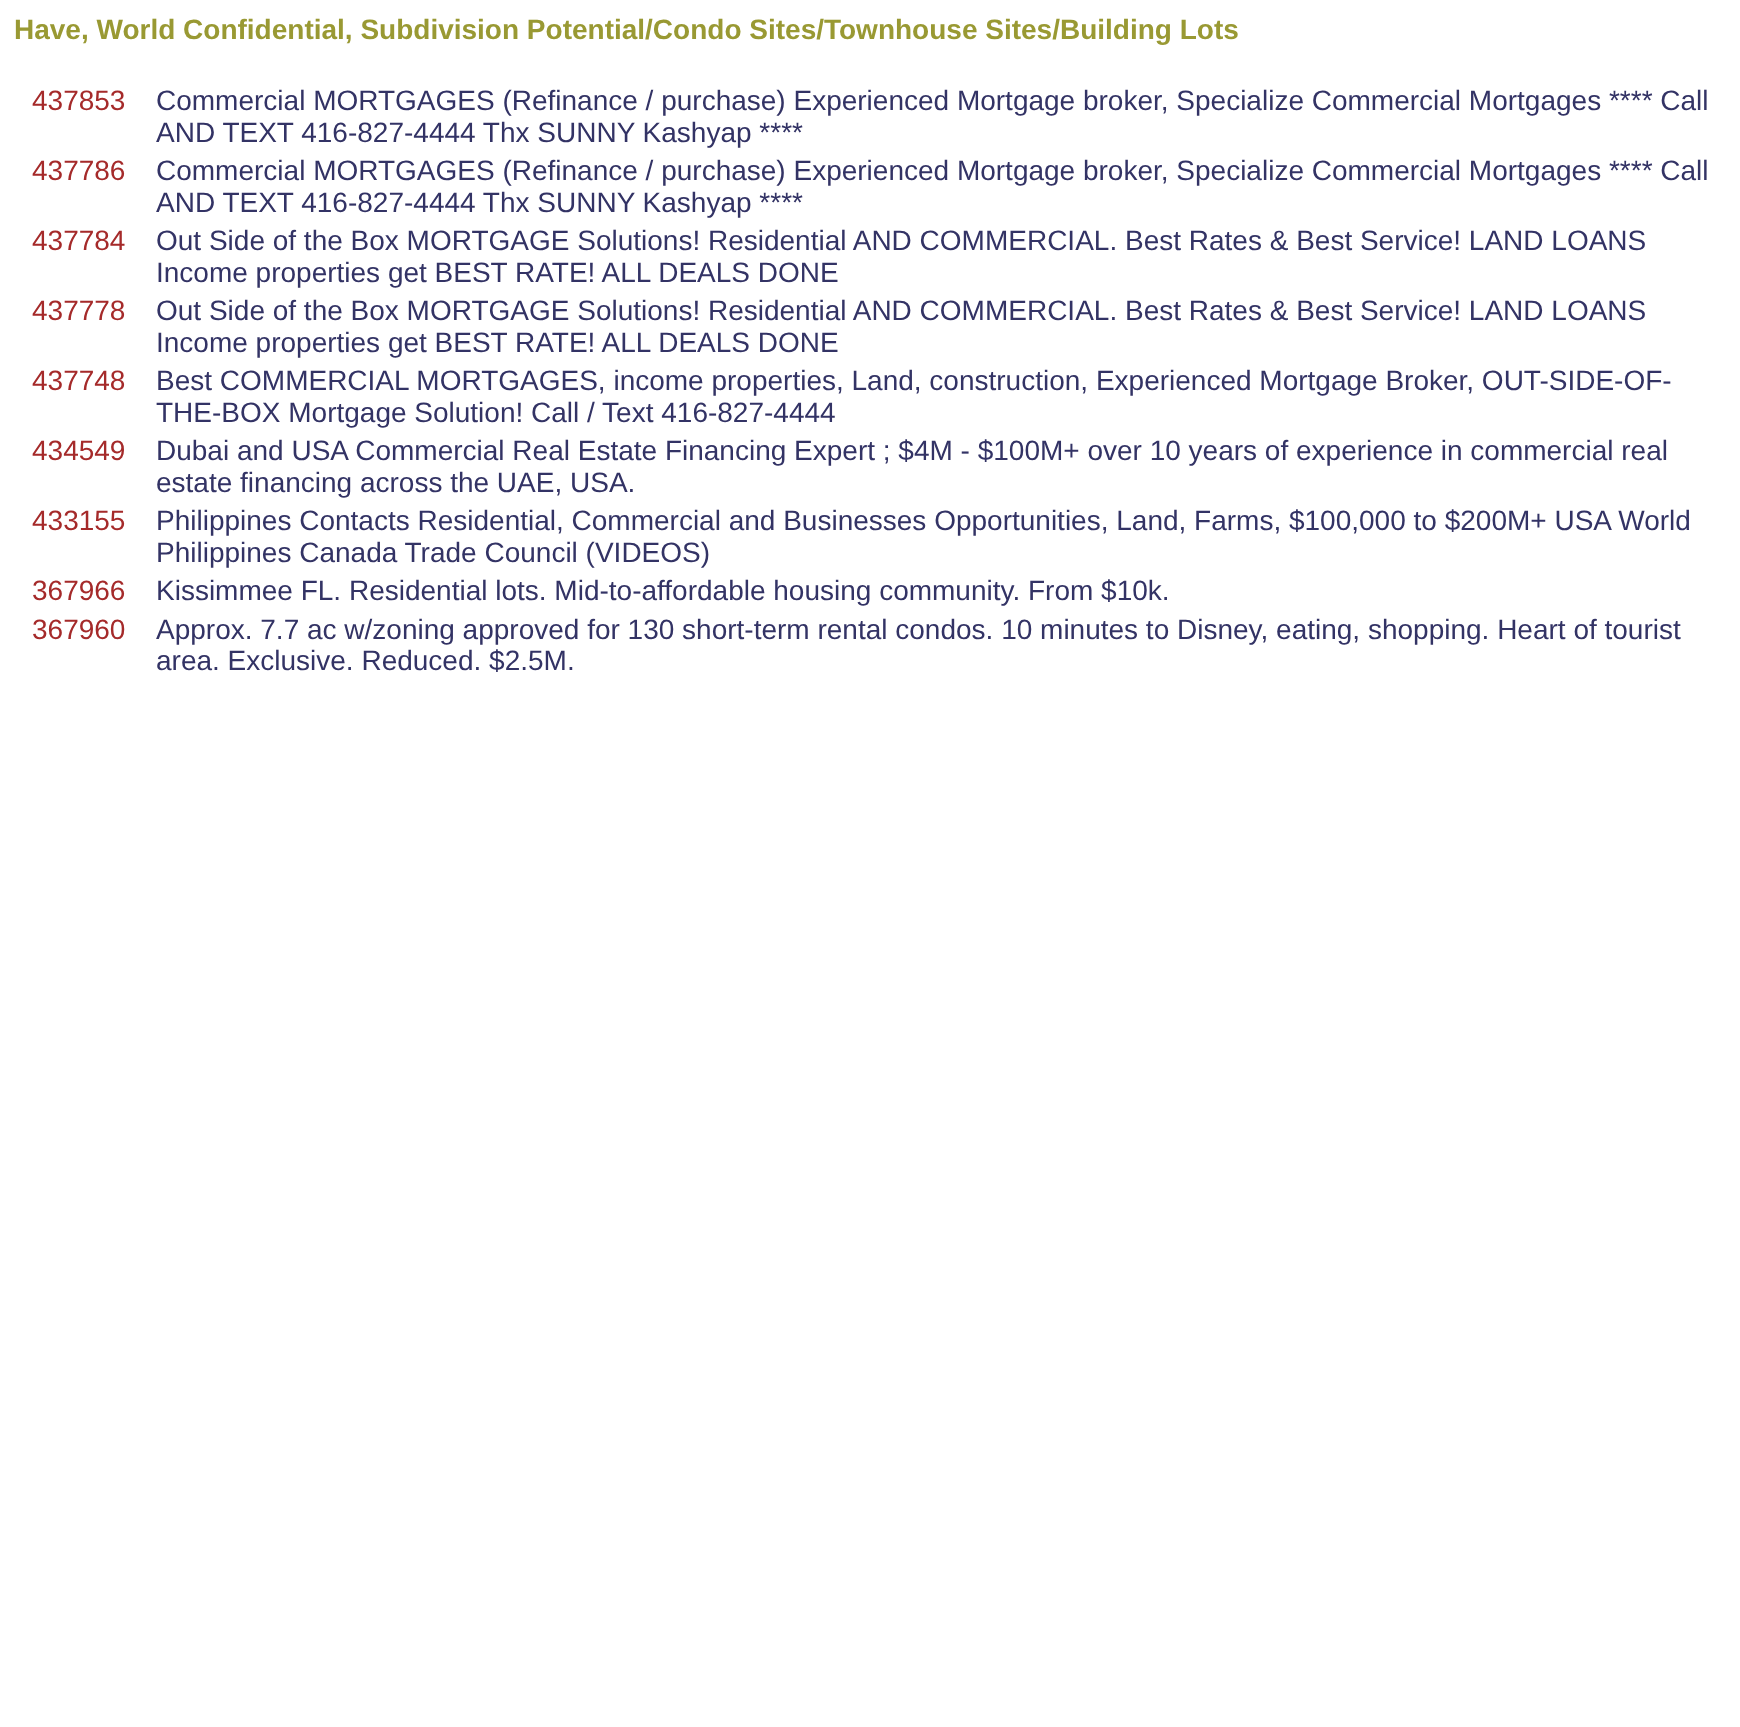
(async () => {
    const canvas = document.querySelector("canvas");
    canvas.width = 1740;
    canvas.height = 1727;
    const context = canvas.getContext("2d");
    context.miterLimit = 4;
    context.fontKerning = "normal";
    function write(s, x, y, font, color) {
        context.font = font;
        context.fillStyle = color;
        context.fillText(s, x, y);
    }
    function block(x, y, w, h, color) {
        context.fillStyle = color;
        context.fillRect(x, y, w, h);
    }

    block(0, 0, 1740, 1727, "rgb(255, 255, 255)");
    write("Have, World Confidential, Subdivision Potential/Condo Sites/Townhouse Sites/Building Lots", 14, 39, "bold 28px Liberation Sans", "rgb(153, 153, 51)");
    write("437853", 32, 110, "28px Liberation Sans", "rgb(165, 42, 42)");
    write("Commercial MORTGAGES (Refinance / purchase) Experienced Mortgage broker, Specialize Commercial Mortgages **** Call", 156, 110, "28px Liberation Sans", "rgb(51, 51, 101)");
    write("AND TEXT 416-827-4444 Thx SUNNY Kashyap ****", 156, 142, "28px Liberation Sans", "rgb(51, 51, 101)");
    write("437786", 32, 180, "28px Liberation Sans", "rgb(165, 42, 42)");
    write("Commercial MORTGAGES (Refinance / purchase) Experienced Mortgage broker, Specialize Commercial Mortgages **** Call", 156, 180, "28px Liberation Sans", "rgb(51, 51, 101)");
    write("AND TEXT 416-827-4444 Thx SUNNY Kashyap ****", 156, 212, "28px Liberation Sans", "rgb(51, 51, 101)");
    write("437784", 32, 250, "28px Liberation Sans", "rgb(165, 42, 42)");
    write("Out Side of the Box MORTGAGE Solutions! Residential AND COMMERCIAL. Best Rates & Best Service! LAND LOANS", 156, 250, "28px Liberation Sans", "rgb(51, 51, 101)");
    write("Income properties get BEST RATE! ALL DEALS DONE", 156, 282, "28px Liberation Sans", "rgb(51, 51, 101)");
    write("437778", 32, 320, "28px Liberation Sans", "rgb(165, 42, 42)");
    write("Out Side of the Box MORTGAGE Solutions! Residential AND COMMERCIAL. Best Rates & Best Service! LAND LOANS", 156, 320, "28px Liberation Sans", "rgb(51, 51, 101)");
    write("Income properties get BEST RATE! ALL DEALS DONE", 156, 352, "28px Liberation Sans", "rgb(51, 51, 101)");
    write("437748", 32, 390, "28px Liberation Sans", "rgb(165, 42, 42)");
    write("Best COMMERCIAL MORTGAGES, income properties, Land, construction, Experienced Mortgage Broker, OUT-SIDE-OF-", 156, 390, "28px Liberation Sans", "rgb(51, 51, 101)");
    write("THE-BOX Mortgage Solution! Call / Text 416-827-4444", 156, 422, "28px Liberation Sans", "rgb(51, 51, 101)");
    write("434549", 32, 460, "28px Liberation Sans", "rgb(165, 42, 42)");
    write("Dubai and USA Commercial Real Estate Financing Expert ; $4M - $100M+ over 10 years of experience in commercial real", 156, 460, "28px Liberation Sans", "rgb(51, 51, 101)");
    write("estate financing across the UAE, USA.", 156, 492, "28px Liberation Sans", "rgb(51, 51, 101)");
    write("433155", 32, 530, "28px Liberation Sans", "rgb(165, 42, 42)");
    write("Philippines Contacts Residential, Commercial and Businesses Opportunities, Land, Farms, $100,000 to $200M+ USA World", 156, 530, "28px Liberation Sans", "rgb(51, 51, 101)");
    write("Philippines Canada Trade Council (VIDEOS)", 156, 562, "28px Liberation Sans", "rgb(51, 51, 101)");
    write("367966", 32, 600, "28px Liberation Sans", "rgb(165, 42, 42)");
    write("Kissimmee FL. Residential lots. Mid-to-affordable housing community. From $10k.", 156, 600, "28px Liberation Sans", "rgb(51, 51, 101)");
    write("367960", 32, 639, "28px Liberation Sans", "rgb(165, 42, 42)");
    write("Approx. 7.7 ac w/zoning approved for 130 short-term rental condos. 10 minutes to Disney, eating, shopping. Heart of tourist", 156, 639, "28px Liberation Sans", "rgb(51, 51, 101)");
    write("area. Exclusive. Reduced. $2.5M.", 156, 670, "28px Liberation Sans", "rgb(51, 51, 101)");
})();
